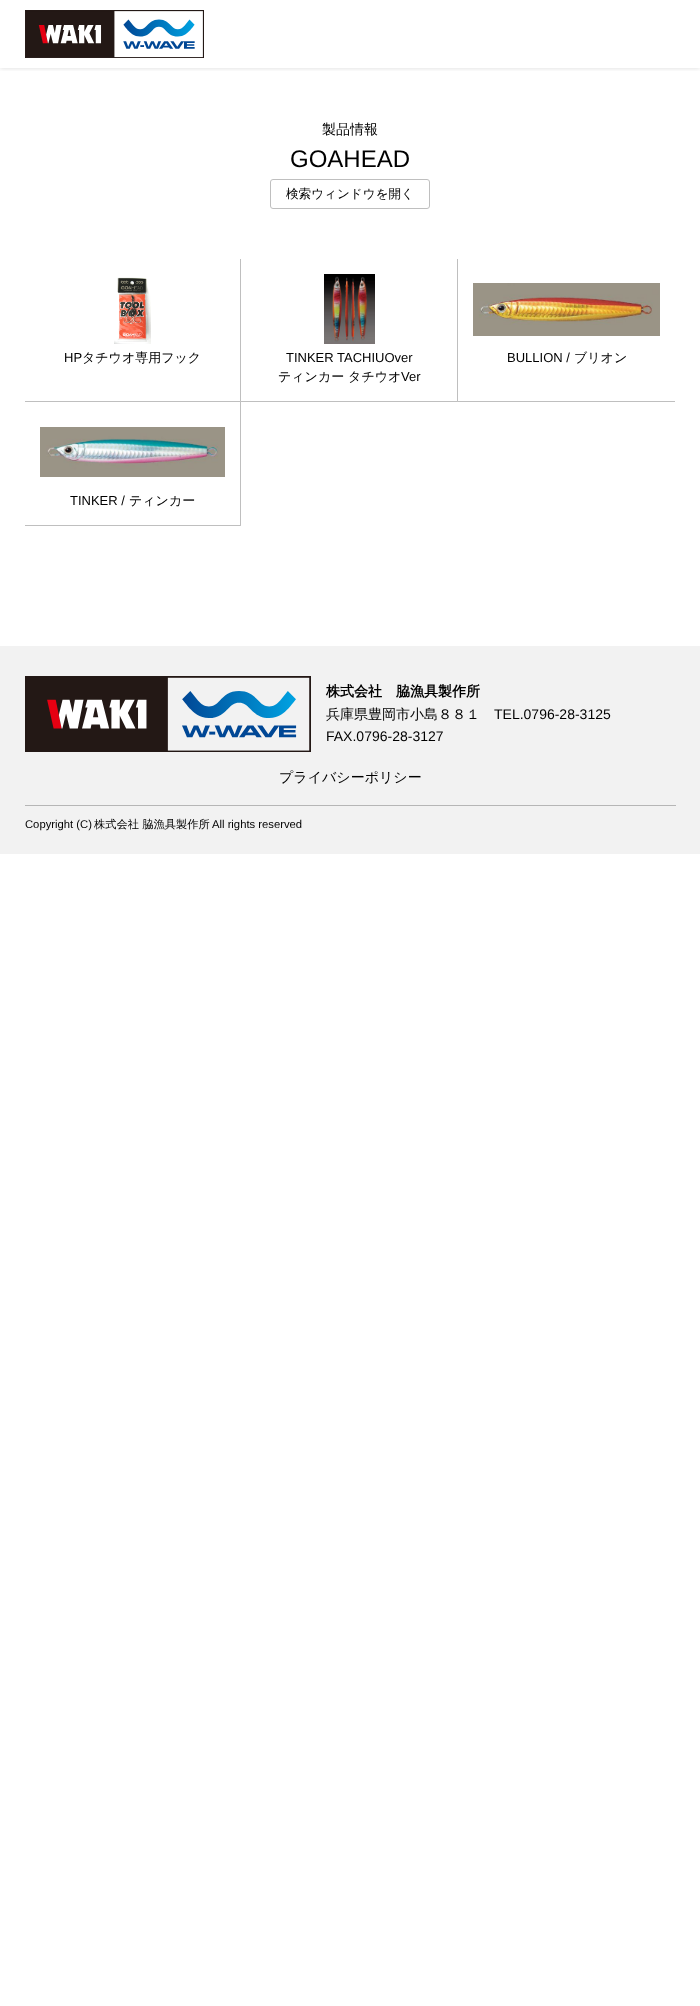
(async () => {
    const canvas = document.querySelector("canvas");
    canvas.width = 700;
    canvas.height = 2006;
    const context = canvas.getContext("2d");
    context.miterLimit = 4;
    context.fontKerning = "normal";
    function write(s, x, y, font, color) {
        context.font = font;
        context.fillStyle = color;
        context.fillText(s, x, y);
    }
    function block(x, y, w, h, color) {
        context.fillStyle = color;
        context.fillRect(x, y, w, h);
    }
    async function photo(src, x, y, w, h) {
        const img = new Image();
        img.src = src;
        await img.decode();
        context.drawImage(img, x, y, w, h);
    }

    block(0, 0, 700, 2006, "rgb(255, 255, 255)");
    context.save();
    context.beginPath();
    context.rect(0, 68, 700, 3);
    context.clip();
    context.fillStyle = "rgba(0, 0, 0, 0.15)";
    context.filter = "blur(2.5px)";
    context.beginPath();
    context.rect(0, 0, 700, 68);
    context.fill();
    context.filter = "none";
    context.restore();
    await photo("media/1.png", 25, 10, 179, 48);
    write("製品情報", 322, 134, "500 14px WenQuanYi Zen Hei", "rgb(0, 0, 0)");
    write("GOAHEAD", 290, 167, "24px Liberation Sans", "rgb(0, 0, 0)");
    context.beginPath();
    context.roundRect(270.5, 179.5, 159, 29, 2.5);
    context.strokeStyle = "rgb(191, 191, 191)";
    context.stroke();
    write("検索ウィンドウを開く", 286, 198, "500 12.6px WenQuanYi Zen Hei", "rgb(0, 0, 0)");
    context.fillStyle = "rgb(191, 191, 191)";
    context.beginPath();
    context.moveTo(241, 259);
    context.lineTo(241, 402);
    context.lineTo(240, 401);
    context.lineTo(240, 259);
    context.closePath();
    context.fill();
    context.fillStyle = "rgba(0, 0, 0, 0.25)";
    context.beginPath();
    context.moveTo(241, 402);
    context.lineTo(25, 402);
    context.lineTo(25, 401);
    context.lineTo(240, 401);
    context.closePath();
    context.fill();
    await photo("media/2.png", 114, 277, 37, 67);
    write("HP", 64, 362, "13px Liberation Sans", "rgb(0, 0, 0)");
    write("タチウオ専用フック", 82, 362, "500 13px WenQuanYi Zen Hei", "rgb(0, 0, 0)");
    context.fillStyle = "rgb(191, 191, 191)";
    context.beginPath();
    context.moveTo(458, 259);
    context.lineTo(458, 402);
    context.lineTo(457, 401);
    context.lineTo(457, 259);
    context.closePath();
    context.fill();
    context.fillStyle = "rgba(0, 0, 0, 0.25)";
    context.beginPath();
    context.moveTo(458, 402);
    context.lineTo(241, 402);
    context.lineTo(241, 401);
    context.lineTo(457, 401);
    context.closePath();
    context.fill();
    await photo("media/3.png", 324, 274, 51, 70);
    write("TINKER TACHIUOver", 286, 362, "13px Liberation Sans", "rgb(0, 0, 0)");
    write("ティンカー タチウオ", 278, 381, "500 13px WenQuanYi Zen Hei", "rgb(0, 0, 0)");
    write("Ver", 401, 381, "13px Liberation Sans", "rgb(0, 0, 0)");
    block(458, 401, 217, 1, "rgb(191, 191, 191)");
    await photo("media/4.png", 473, 283, 187, 53);
    write("BULLION /", 507, 362, "13px Liberation Sans", "rgb(0, 0, 0)");
    write("ブリオン", 574, 362, "500 13px WenQuanYi Zen Hei", "rgb(0, 0, 0)");
    context.fillStyle = "rgb(191, 191, 191)";
    context.beginPath();
    context.moveTo(241, 402);
    context.lineTo(241, 526);
    context.lineTo(240, 525);
    context.lineTo(240, 402);
    context.closePath();
    context.fill();
    context.fillStyle = "rgba(0, 0, 0, 0.25)";
    context.beginPath();
    context.moveTo(241, 526);
    context.lineTo(25, 526);
    context.lineTo(25, 525);
    context.lineTo(240, 525);
    context.closePath();
    context.fill();
    await photo("media/5.png", 40, 427, 185, 50);
    write("TINKER /", 70, 505, "13px Liberation Sans", "rgb(0, 0, 0)");
    write("ティンカー", 129, 505, "500 13px WenQuanYi Zen Hei", "rgb(0, 0, 0)");
    block(0, 646, 700, 208, "rgb(242, 242, 242)");
    await photo("media/6.png", 25, 676, 286, 76);
    write("株式会社　脇漁具製作所", 326, 696, "bold 14px WenQuanYi Zen Hei", "rgb(0, 0, 0)");
    write("兵庫県豊岡市小島８８１", 326, 719, "500 14px WenQuanYi Zen Hei", "rgb(0, 0, 0)");
    write("TEL.0796-28-3125", 494, 719, "14px Liberation Sans", "rgb(0, 0, 0)");
    write("FAX.0796-28-3127", 326, 741, "14px Liberation Sans", "rgb(0, 0, 0)");
    write("プライバシーポリシー", 279, 782, "500 14px WenQuanYi Zen Hei", "rgb(0, 0, 0)");
    block(25, 805, 651, 1, "rgb(182, 182, 182)");
    write("Copyright (C)", 25, 828, "11.25px Liberation Sans", "rgb(0, 0, 0)");
    write("株式会社 脇漁具製作所", 94, 828, "500 11.25px WenQuanYi Zen Hei", "rgb(0, 0, 0)");
    write("All rights reserved", 212, 828, "11.25px Liberation Sans", "rgb(0, 0, 0)");
})();
